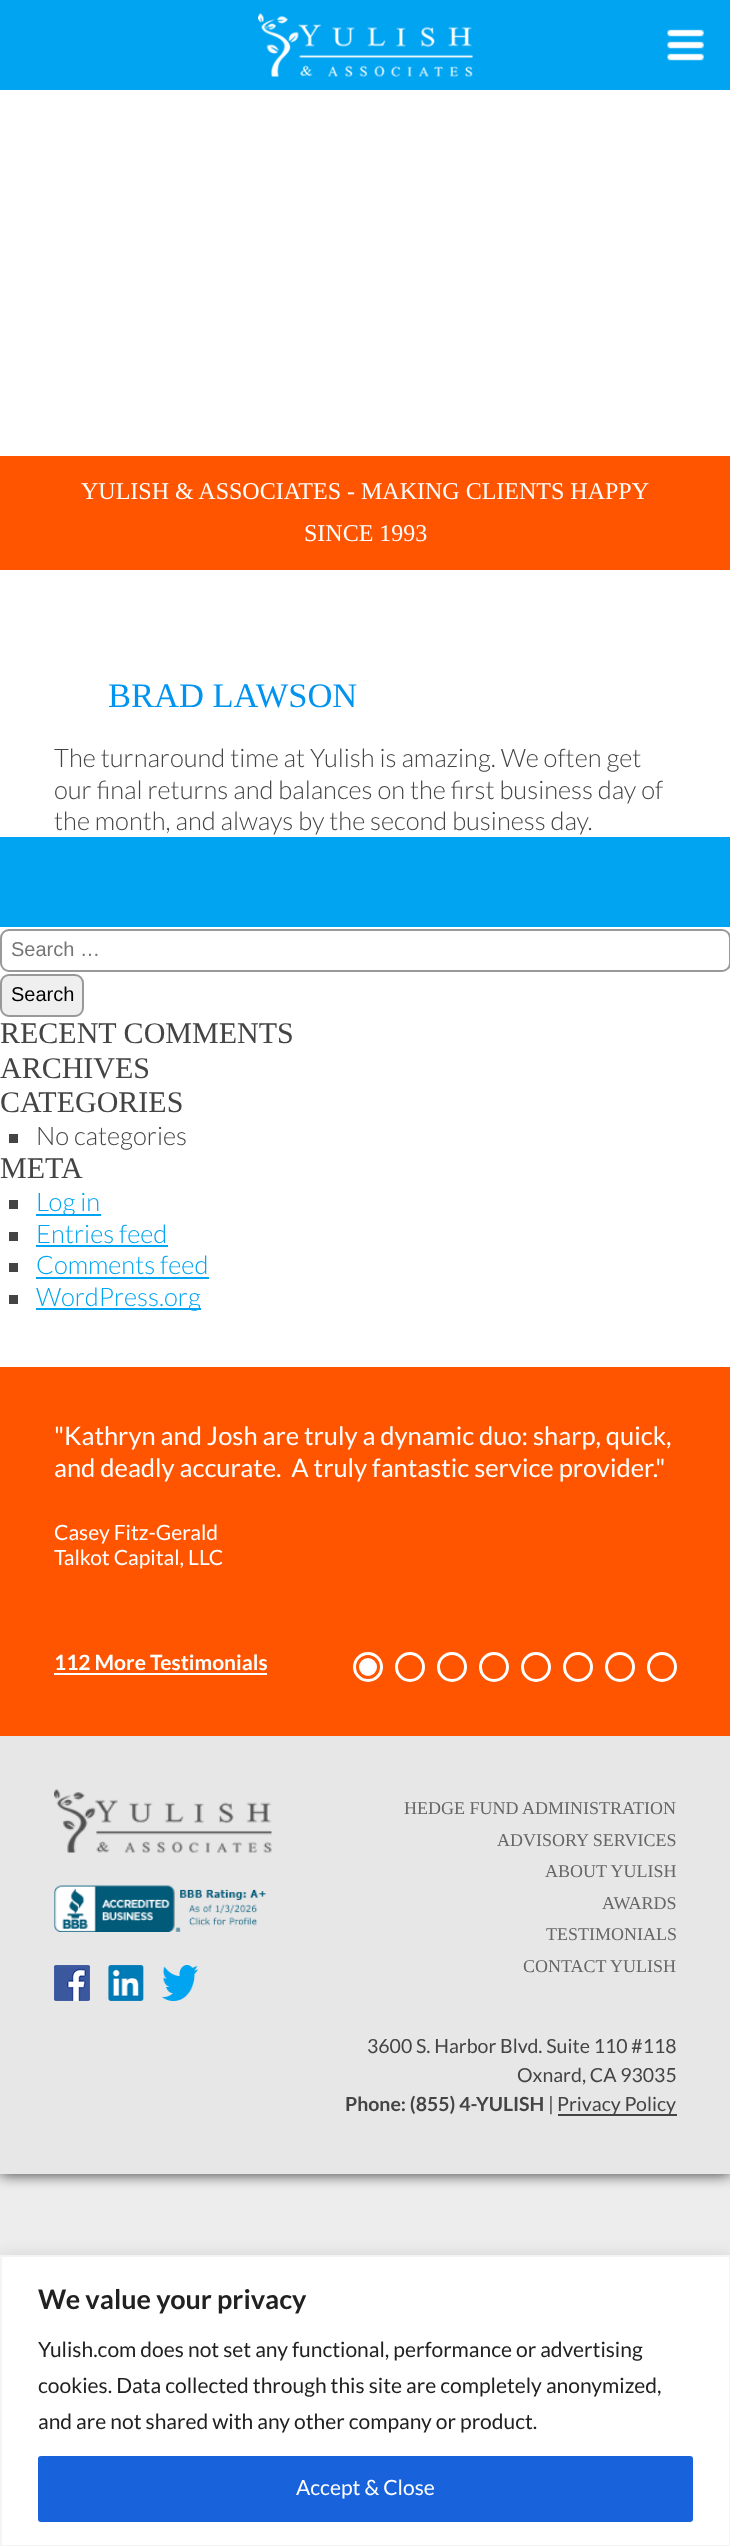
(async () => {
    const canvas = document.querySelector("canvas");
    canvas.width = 730;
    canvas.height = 2546;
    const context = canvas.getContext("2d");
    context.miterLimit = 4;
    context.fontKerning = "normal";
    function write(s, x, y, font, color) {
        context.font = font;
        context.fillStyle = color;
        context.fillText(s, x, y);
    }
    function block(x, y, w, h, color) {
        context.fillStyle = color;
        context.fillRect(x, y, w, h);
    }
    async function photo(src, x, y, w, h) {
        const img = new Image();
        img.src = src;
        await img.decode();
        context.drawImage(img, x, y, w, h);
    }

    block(0, 0, 730, 2546, "rgb(237, 237, 237)");
    context.fillStyle = "rgba(0, 0, 0, 0.8)";
    context.filter = "blur(7.5px)";
    context.beginPath();
    context.rect(0, 0, 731, 2174);
    context.fill();
    context.filter = "none";
    block(0, 0, 730, 90, "rgb(0, 164, 240)");
    await photo("media/1.png", 258, 13, 215, 64);
    await photo("media/2.png", 667, 29, 37, 32);
    block(0, 90, 730, 1277, "rgb(255, 255, 255)");
    block(0, 456, 730, 114, "rgb(255, 85, 0)");
    write("YULISH & ASSOCIATES - MAKING CLIENTS HAPPY", 81, 499, "24px Liberation Serif", "rgb(255, 255, 255)");
    write("SINCE 1993", 304, 541, "24px Liberation Serif", "rgb(255, 255, 255)");
    write("BRAD LAWSON", 108, 707, "34.5px Liberation Serif", "rgb(0, 148, 240)");
    write("The turnaround time at Yulish is amazing. We often get", 54, 767, "300 25.5px Lato", "rgb(68, 68, 68)");
    write("our final returns and balances on the first business day of", 54, 799, "300 25.5px Lato", "rgb(68, 68, 68)");
    write("the month, and always by the second business day.", 54, 830, "300 25.5px Lato", "rgb(68, 68, 68)");
    block(0, 837, 730, 90, "rgb(0, 164, 240)");
    context.beginPath();
    context.roundRect(1, 930, 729, 41, 8);
    context.strokeStyle = "rgb(153, 153, 153)";
    context.lineWidth = 2;
    context.stroke();
    write("Search …", 11, 956, "20px Liberation Sans", "rgb(117, 117, 117)");
    context.fillStyle = "rgb(239, 239, 239)";
    context.beginPath();
    context.roundRect(1, 975, 82, 41, 8);
    context.fill();
    context.stroke();
    write("Search", 11, 1001, "20px Liberation Sans", "rgb(0, 0, 0)");
    write("RECENT COMMENTS", 0, 1043, "30px Liberation Serif", "rgb(68, 68, 68)");
    write("ARCHIVES", 0, 1078, "30px Liberation Serif", "rgb(68, 68, 68)");
    write("CATEGORIES", 0, 1112, "30px Liberation Serif", "rgb(68, 68, 68)");
    block(9, 1134, 9, 9, "rgb(68, 68, 68)");
    write("No categories", 36, 1145, "300 25.5px Lato", "rgb(68, 68, 68)");
    write("META", 0, 1178, "30px Liberation Serif", "rgb(68, 68, 68)");
    block(9, 1200, 9, 9, "rgb(68, 68, 68)");
    block(36, 1214, 65, 2, "rgb(0, 164, 240)");
    write("Log in", 36, 1211, "300 25.5px Lato", "rgb(0, 164, 240)");
    block(9, 1232, 9, 9, "rgb(68, 68, 68)");
    write("Entries feed", 36, 1243, "300 25.5px Lato", "rgb(0, 164, 240)");
    block(36, 1245, 132, 2, "rgb(0, 164, 240)");
    block(9, 1263, 9, 9, "rgb(68, 68, 68)");
    write("Comments feed", 36, 1274, "300 25.5px Lato", "rgb(0, 164, 240)");
    block(36, 1277, 173, 2, "rgb(0, 164, 240)");
    block(9, 1295, 9, 9, "rgb(68, 68, 68)");
    block(36, 1308, 165, 2, "rgb(0, 164, 240)");
    write("WordPress.org", 36, 1306, "300 25.5px Lato", "rgb(0, 164, 240)");
    block(0, 1367, 730, 369, "rgb(255, 85, 0)");
    write("\"Kathryn and Josh are truly a dynamic duo: sharp, quick,", 54, 1445, "25.5px Lato", "rgb(255, 255, 255)");
    write("and deadly accurate.  A truly fantastic service provider.\"", 54, 1477, "25.5px Lato", "rgb(255, 255, 255)");
    write("Casey Fitz-Gerald", 54, 1540, "21px Lato", "rgb(255, 255, 255)");
    write("Talkot Capital, LLC", 54, 1565, "21px Lato", "rgb(255, 255, 255)");
    write("112 More Testimonials", 54, 1670, "bold 21px Lato", "rgb(255, 255, 255)");
    block(54, 1673, 213, 2, "rgb(255, 255, 255)");
    context.beginPath();
    context.arc(368, 1667, 13.5, 0, Math.PI * 2);
    context.strokeStyle = "rgb(255, 255, 255)";
    context.lineWidth = 3;
    context.stroke();
    context.beginPath();
    context.arc(368, 1667, 9, 0, Math.PI * 2);
    context.fill();
    context.beginPath();
    context.arc(410, 1667, 13.5, 0, Math.PI * 2);
    context.stroke();
    context.beginPath();
    context.arc(452, 1667, 13.5, 0, Math.PI * 2);
    context.stroke();
    context.beginPath();
    context.arc(494, 1667, 13.5, 0, Math.PI * 2);
    context.stroke();
    context.beginPath();
    context.arc(536, 1667, 13.5, 0, Math.PI * 2);
    context.stroke();
    context.beginPath();
    context.arc(578, 1667, 13.5, 0, Math.PI * 2);
    context.stroke();
    context.beginPath();
    context.arc(620, 1667, 13.5, 0, Math.PI * 2);
    context.stroke();
    context.beginPath();
    context.arc(662, 1667, 13.5, 0, Math.PI * 2);
    context.stroke();
    block(0, 1736, 730, 438, "rgb(231, 231, 231)");
    await photo("media/3.png", 54, 1789, 218, 64);
    await photo("media/4.png", 54, 1885, 213, 47);
    write("HEDGE FUND ADMINISTRATION", 404, 1814, "18px Liberation Serif", "rgb(102, 102, 102)");
    write("ADVISORY SERVICES", 497, 1846, "18px Liberation Serif", "rgb(102, 102, 102)");
    write("ABOUT YULISH", 545, 1877, "18px Liberation Serif", "rgb(102, 102, 102)");
    write("AWARDS", 602, 1909, "18px Liberation Serif", "rgb(102, 102, 102)");
    write("TESTIMONIALS", 546, 1940, "18px Liberation Serif", "rgb(102, 102, 102)");
    write("CONTACT YULISH", 523, 1972, "18px Liberation Serif", "rgb(102, 102, 102)");
    write("3600 S. Harbor Blvd. Suite 110 #118", 367, 2053, "19.5px Lato", "rgb(68, 68, 68)");
    write("Oxnard, CA 93035", 517, 2082, "19.5px Lato", "rgb(68, 68, 68)");
    write("Phone: (855) 4-YULISH", 345, 2111, "bold 19.5px Lato", "rgb(68, 68, 68)");
    write("|", 548, 2111, "19.5px Lato", "rgb(68, 68, 68)");
    block(558, 2114, 119, 2, "rgb(68, 68, 68)");
    write("Privacy Policy", 557, 2111, "19.5px Lato", "rgb(68, 68, 68)");
    await photo("media/5.png", 54, 1965, 36, 36);
    await photo("media/6.png", 108, 1965, 36, 36);
    await photo("media/7.png", 162, 1965, 36, 36);
    context.fillStyle = "rgba(172, 171, 171, 0.3)";
    context.filter = "blur(7.5px)";
    context.beginPath();
    context.rect(0, 2253, 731, 293);
    context.fill();
    context.filter = "none";
    context.fillStyle = "rgb(255, 255, 255)";
    context.beginPath();
    context.rect(1, 2256, 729, 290);
    context.fill();
    context.strokeStyle = "rgb(244, 244, 244)";
    context.lineWidth = 2;
    context.stroke();
    write("We value your privacy", 38, 2309, "bold 27px Lato", "rgb(33, 33, 33)");
    write("Yulish.com does not set any functional, performance or advertising", 38, 2357, "21px Lato", "rgb(33, 33, 33)");
    write("cookies. Data collected through this site are completely anonymized,", 38, 2393, "21px Lato", "rgb(33, 33, 33)");
    write("and are not shared with any other company or product.", 38, 2429, "21px Lato", "rgb(33, 33, 33)");
    context.fillStyle = "rgb(24, 99, 220)";
    context.beginPath();
    context.roundRect(39.5, 2457.5, 652, 63, 1.5);
    context.fill();
    context.strokeStyle = "rgb(24, 99, 220)";
    context.lineWidth = 3;
    context.stroke();
    write("Accept & Close", 296, 2495, "21px Lato", "rgb(255, 255, 255)");
})();
